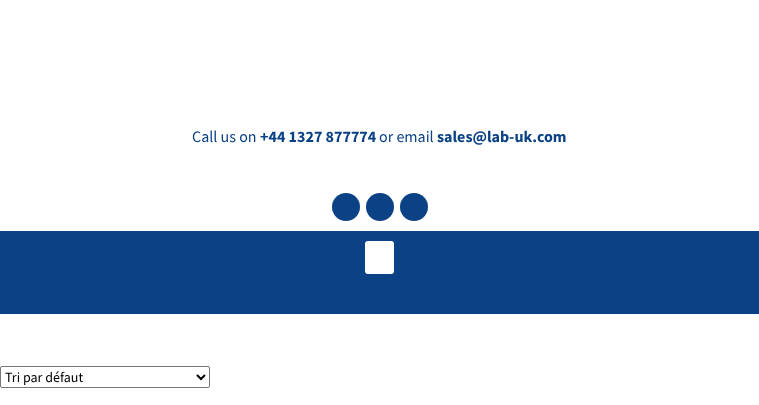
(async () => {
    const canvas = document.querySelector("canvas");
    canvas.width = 759;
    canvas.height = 405;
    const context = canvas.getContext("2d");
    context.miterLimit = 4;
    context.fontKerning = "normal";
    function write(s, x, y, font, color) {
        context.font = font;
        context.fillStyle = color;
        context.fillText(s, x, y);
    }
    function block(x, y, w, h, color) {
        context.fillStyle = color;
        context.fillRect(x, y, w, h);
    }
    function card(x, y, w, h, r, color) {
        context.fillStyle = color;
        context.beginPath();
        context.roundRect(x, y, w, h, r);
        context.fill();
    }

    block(0, 0, 759, 405, "rgb(255, 255, 255)");
    write("Call us on", 192, 142, "16px Source Sans Pro", "rgb(11, 65, 133)");
    write("+44 1327 877774", 260, 142, "bold 16px Source Sans Pro", "rgb(11, 65, 133)");
    write("or email", 379, 142, "16px Source Sans Pro", "rgb(11, 65, 133)");
    write("sales@lab-uk.com", 437, 142, "bold 16px Source Sans Pro", "rgb(11, 65, 133)");
    context.beginPath();
    context.arc(346, 207, 14, 0, Math.PI * 2);
    context.fill();
    context.beginPath();
    context.arc(380, 207, 14, 0, Math.PI * 2);
    context.fill();
    context.beginPath();
    context.arc(414, 207, 14, 0, Math.PI * 2);
    context.fill();
    block(0, 231, 759, 83, "rgb(11, 65, 133)");
    card(365, 241, 29, 33, 3, "rgb(255, 255, 255)");
    context.beginPath();
    context.roundRect(0.5, 366.5, 209, 21, 1.5);
    context.strokeStyle = "rgb(118, 118, 118)";
    context.stroke();
    context.beginPath();
    context.moveTo(197, 375);
    context.lineTo(201, 379);
    context.lineTo(205, 375);
    context.strokeStyle = "rgb(0, 0, 0)";
    context.lineWidth = 2;
    context.stroke();
    write("Tri par défaut", 5, 382, "14px Source Sans Pro", "rgb(0, 0, 0)");
})();
